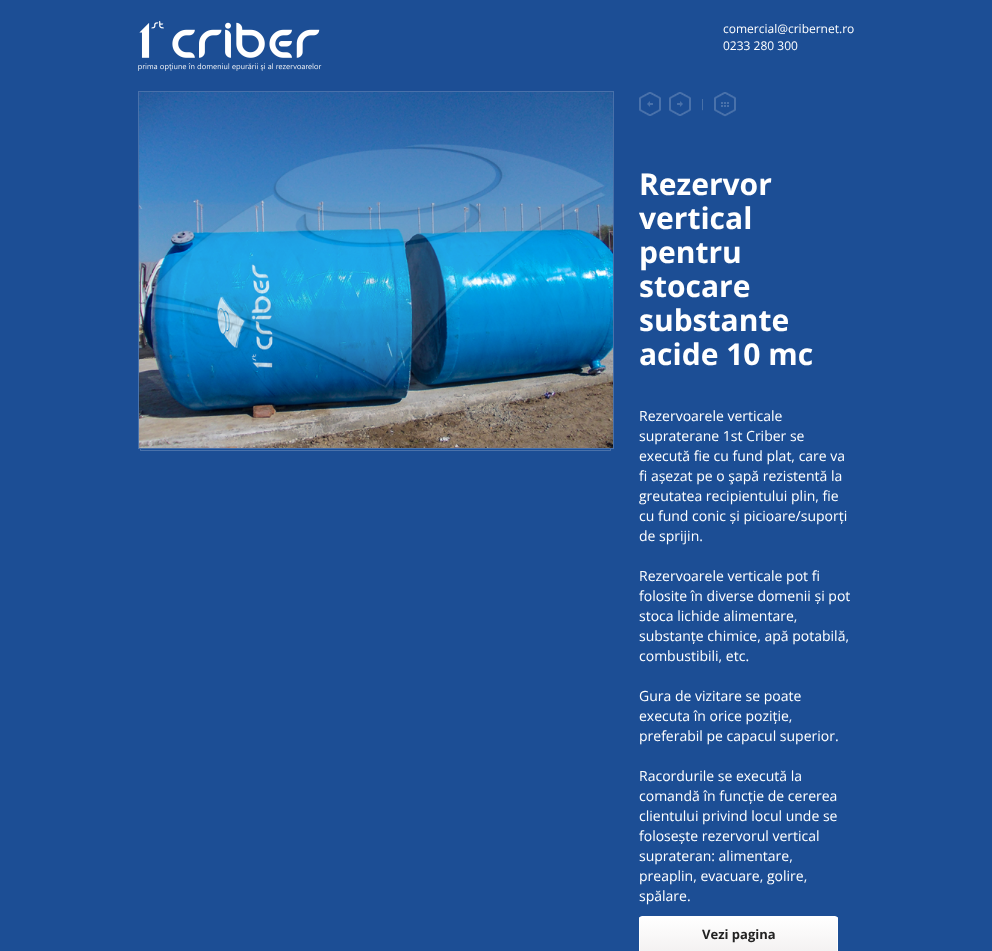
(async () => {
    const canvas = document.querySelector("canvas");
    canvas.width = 992;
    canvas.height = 951;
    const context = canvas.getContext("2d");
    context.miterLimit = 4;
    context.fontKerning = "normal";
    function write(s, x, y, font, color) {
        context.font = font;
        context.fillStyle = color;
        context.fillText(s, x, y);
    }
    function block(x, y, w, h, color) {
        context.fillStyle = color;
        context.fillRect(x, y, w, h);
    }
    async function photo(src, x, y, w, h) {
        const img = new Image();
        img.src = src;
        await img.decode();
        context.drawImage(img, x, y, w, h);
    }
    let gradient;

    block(0, 0, 992, 951, "rgb(28, 78, 149)");
    await photo("media/1.png", 138, 20, 184, 51);
    write("comercial@cribernet.ro", 723, 33, "12px Open Sans", "rgb(255, 255, 255)");
    write("0233 280 300", 723, 50, "12px Open Sans", "rgb(255, 255, 255)");
    context.strokeStyle = "rgb(73, 113, 170)";
    context.strokeRect(138.5, 91.5, 475, 357);
    await photo("media/2.png", 139, 92, 474, 356);
    context.fillStyle = "rgb(73, 113, 170)";
    context.beginPath();
    context.moveTo(611, 449);
    context.lineTo(611, 451);
    context.lineTo(610, 450);
    context.lineTo(610, 449);
    context.closePath();
    context.fill();
    context.fillStyle = "rgba(255, 255, 255, 0.2)";
    context.beginPath();
    context.moveTo(611, 451);
    context.lineTo(140, 451);
    context.lineTo(141, 450);
    context.lineTo(610, 450);
    context.closePath();
    context.fill();
    context.beginPath();
    context.moveTo(140, 451);
    context.lineTo(140, 449);
    context.lineTo(141, 449);
    context.lineTo(141, 450);
    context.closePath();
    context.fill();
    await photo("media/3.png", 639, 92, 22, 24);
    await photo("media/4.png", 669, 92, 22, 24);
    await photo("media/5.png", 702, 99, 1, 12);
    await photo("media/6.png", 714, 92, 22, 25);
    write("Rezervor", 639, 195, "bold 30px Open Sans", "rgb(255, 255, 255)");
    write("vertical", 639, 229, "bold 30px Open Sans", "rgb(255, 255, 255)");
    write("pentru", 639, 263, "bold 30px Open Sans", "rgb(255, 255, 255)");
    write("stocare", 639, 297, "bold 30px Open Sans", "rgb(255, 255, 255)");
    write("substante", 639, 331, "bold 30px Open Sans", "rgb(255, 255, 255)");
    write("acide 10 mc", 639, 365, "bold 30px Open Sans", "rgb(255, 255, 255)");
    write("Rezervoarele verticale", 639, 421, "14px Open Sans", "rgb(255, 255, 255)");
    write("supraterane 1st Criber se", 639, 441, "14px Open Sans", "rgb(255, 255, 255)");
    write("execută fie cu fund plat, care va", 639, 461, "14px Open Sans", "rgb(255, 255, 255)");
    write("fi așezat pe o şapă rezistentă la", 639, 481, "14px Open Sans", "rgb(255, 255, 255)");
    write("greutatea recipientului plin, fie", 639, 501, "14px Open Sans", "rgb(255, 255, 255)");
    write("cu fund conic și picioare/suporți", 639, 521, "14px Open Sans", "rgb(255, 255, 255)");
    write("de sprijin.", 639, 541, "14px Open Sans", "rgb(255, 255, 255)");
    write("Rezervoarele verticale pot fi", 639, 581, "14px Open Sans", "rgb(255, 255, 255)");
    write("folosite în diverse domenii și pot", 639, 601, "14px Open Sans", "rgb(255, 255, 255)");
    write("stoca lichide alimentare,", 639, 621, "14px Open Sans", "rgb(255, 255, 255)");
    write("substanțe chimice, apă potabilă,", 639, 641, "14px Open Sans", "rgb(255, 255, 255)");
    write("combustibili, etc.", 639, 661, "14px Open Sans", "rgb(255, 255, 255)");
    write("Gura de vizitare se poate", 639, 701, "14px Open Sans", "rgb(255, 255, 255)");
    write("executa în orice poziție,", 639, 721, "14px Open Sans", "rgb(255, 255, 255)");
    write("preferabil pe capacul superior.", 639, 741, "14px Open Sans", "rgb(255, 255, 255)");
    write("Racordurile se execută la", 639, 781, "14px Open Sans", "rgb(255, 255, 255)");
    write("comandă în funcție de cererea", 639, 801, "14px Open Sans", "rgb(255, 255, 255)");
    write("clientului privind locul unde se", 639, 821, "14px Open Sans", "rgb(255, 255, 255)");
    write("folosește rezervorul vertical", 639, 841, "14px Open Sans", "rgb(255, 255, 255)");
    write("suprateran: alimentare,", 639, 861, "14px Open Sans", "rgb(255, 255, 255)");
    write("preaplin, evacuare, golire,", 639, 881, "14px Open Sans", "rgb(255, 255, 255)");
    write("spălare.", 639, 901, "14px Open Sans", "rgb(255, 255, 255)");
    context.save();
    context.beginPath();
    context.roundRect(639, 916, 199, 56, 3);
    context.clip();
    gradient = context.createLinearGradient(739, 917, 739, 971);
    gradient.addColorStop(0, "rgb(255, 255, 255)");
    gradient.addColorStop(1, "rgb(237, 234, 234)");
    context.fillStyle = gradient;
    context.fillRect(639, 917, 199, 34);
    context.restore();
    context.beginPath();
    context.roundRect(639.5, 916.5, 198, 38, 2.5);
    context.strokeStyle = "rgb(255, 255, 255)";
    context.stroke();
    write("Vezi pagina", 702, 939, "bold 13px Open Sans", "rgb(34, 34, 34)");
})();
